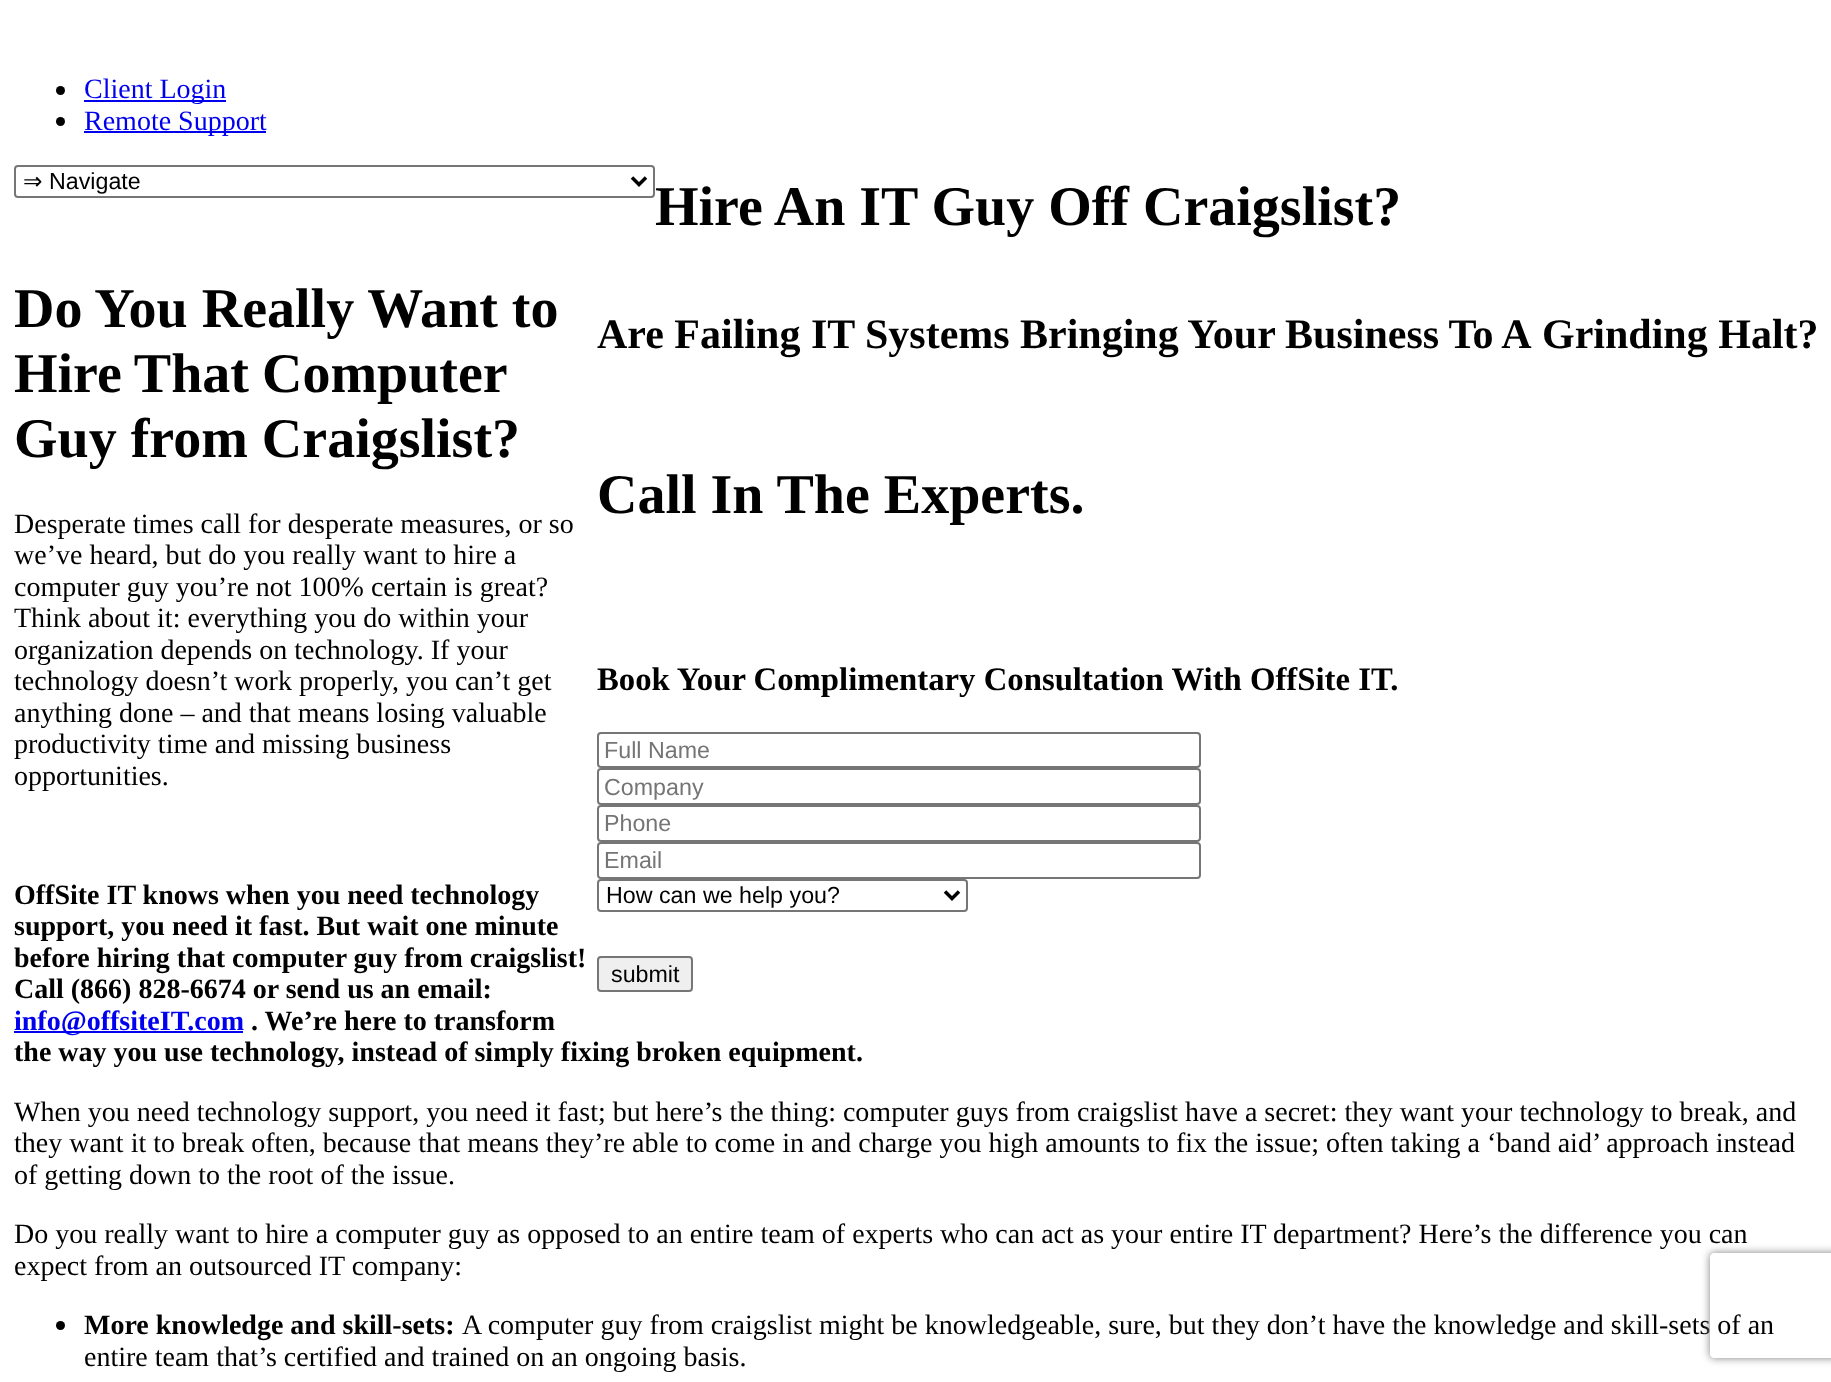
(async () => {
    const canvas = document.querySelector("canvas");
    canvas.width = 1831;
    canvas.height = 1382;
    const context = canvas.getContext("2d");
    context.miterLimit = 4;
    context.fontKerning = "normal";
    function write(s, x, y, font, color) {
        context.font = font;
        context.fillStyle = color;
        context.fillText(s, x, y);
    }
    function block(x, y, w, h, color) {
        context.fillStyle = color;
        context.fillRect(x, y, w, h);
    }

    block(0, 0, 1831, 1382, "rgb(255, 255, 255)");
    context.fillStyle = "rgb(0, 0, 0)";
    context.beginPath();
    context.arc(60.5, 90.5, 4.5, 0, Math.PI * 2);
    context.fill();
    block(84, 100, 142, 2, "rgb(0, 0, 238)");
    write("Client Login", 84, 98, "28px Liberation Serif", "rgb(0, 0, 238)");
    context.fillStyle = "rgb(0, 0, 0)";
    context.beginPath();
    context.arc(60.5, 121.5, 4.5, 0, Math.PI * 2);
    context.fill();
    block(84, 131, 182, 2, "rgb(0, 0, 238)");
    write("Remote Support", 84, 130, "28px Liberation Serif", "rgb(0, 0, 238)");
    context.beginPath();
    context.roundRect(15, 166, 639, 31, 3);
    context.strokeStyle = "rgb(118, 118, 118)";
    context.lineWidth = 2;
    context.stroke();
    context.beginPath();
    context.moveTo(632, 177.5);
    context.lineTo(639, 184.5);
    context.lineTo(646, 177.5);
    context.strokeStyle = "rgb(0, 0, 0)";
    context.lineWidth = 3.5;
    context.stroke();
    write("⇒", 23, 189, "23.25px DejaVu Sans", "rgb(0, 0, 0)");
    write("Navigate", 49, 189, "23.25px Liberation Sans", "rgb(0, 0, 0)");
    write("Hire An IT Guy Off Craigslist?", 655, 225, "bold 56px Liberation Serif", "rgb(0, 0, 0)");
    write("Do You Really Want to", 14, 327, "bold 56px Liberation Serif", "rgb(0, 0, 0)");
    context.wordSpacing = "-1px";
    write("Hire That Computer", 14, 392, "bold 56px Liberation Serif", "rgb(0, 0, 0)");
    context.wordSpacing = "0px";
    write("Guy from Craigslist?", 14, 457, "bold 56px Liberation Serif", "rgb(0, 0, 0)");
    write("Are Failing IT Systems", 597, 348, "bold 42px Liberation Serif", "rgb(0, 0, 0)");
    context.wordSpacing = "-0.5px";
    write("Bringing Your Business To A", 1020, 348, "bold 42px Liberation Serif", "rgb(0, 0, 0)");
    context.wordSpacing = "0px";
    write("Grinding Halt?", 1542, 348, "bold 42px Liberation Serif", "rgb(0, 0, 0)");
    write("Call In The Experts.", 597, 513, "bold 56px Liberation Serif", "rgb(0, 0, 0)");
    write("Book Your Complimentary Consultation With OffSite IT.", 597, 690, "bold 32.75px Liberation Serif", "rgb(0, 0, 0)");
    context.beginPath();
    context.roundRect(598, 733, 602, 34, 3);
    context.strokeStyle = "rgb(118, 118, 118)";
    context.lineWidth = 2;
    context.stroke();
    write("Full Name", 604, 758, "23.25px Liberation Sans", "rgb(117, 117, 117)");
    context.beginPath();
    context.roundRect(598, 769, 602, 35, 3);
    context.stroke();
    write("Company", 604, 795, "23.25px Liberation Sans", "rgb(117, 117, 117)");
    context.beginPath();
    context.roundRect(598, 806, 602, 35, 3);
    context.stroke();
    write("Phone", 604, 831, "23.25px Liberation Sans", "rgb(117, 117, 117)");
    context.beginPath();
    context.roundRect(598, 843, 602, 35, 3);
    context.stroke();
    write("Email", 604, 868, "23.25px Liberation Sans", "rgb(117, 117, 117)");
    context.beginPath();
    context.roundRect(598, 880, 369, 31, 3);
    context.stroke();
    context.beginPath();
    context.moveTo(945, 891.5);
    context.lineTo(952, 898.5);
    context.lineTo(959, 891.5);
    context.strokeStyle = "rgb(0, 0, 0)";
    context.lineWidth = 3.5;
    context.stroke();
    write("How can we help you?", 606, 903, "23.25px Liberation Sans", "rgb(0, 0, 0)");
    context.fillStyle = "rgb(239, 239, 239)";
    context.beginPath();
    context.roundRect(598, 957, 94, 34, 3);
    context.fill();
    context.strokeStyle = "rgb(118, 118, 118)";
    context.lineWidth = 2;
    context.stroke();
    write("submit", 611, 982, "23.25px Liberation Sans", "rgb(0, 0, 0)");
    write("Desperate times call for desperate measures, or so", 14, 533, "28px Liberation Serif", "rgb(0, 0, 0)");
    write("we’ve heard, but do you really want to hire a", 14, 564, "28px Liberation Serif", "rgb(0, 0, 0)");
    write("computer guy you’re not 100% certain is great?", 14, 596, "28px Liberation Serif", "rgb(0, 0, 0)");
    write("Think about it: everything you do within your", 14, 627, "28px Liberation Serif", "rgb(0, 0, 0)");
    write("organization depends on technology. If your", 14, 659, "28px Liberation Serif", "rgb(0, 0, 0)");
    write("technology doesn’t work properly, you can’t get", 14, 690, "28px Liberation Serif", "rgb(0, 0, 0)");
    write("anything done – and that means losing valuable", 14, 722, "28px Liberation Serif", "rgb(0, 0, 0)");
    write("productivity time and missing business", 14, 753, "28px Liberation Serif", "rgb(0, 0, 0)");
    write("opportunities.", 14, 785, "28px Liberation Serif", "rgb(0, 0, 0)");
    write("OffSite IT knows when you need technology", 14, 904, "bold 28px Liberation Serif", "rgb(0, 0, 0)");
    write("support, you need it fast. But wait one minute", 14, 935, "bold 28px Liberation Serif", "rgb(0, 0, 0)");
    write("before hiring that computer guy from craigslist!", 14, 967, "bold 28px Liberation Serif", "rgb(0, 0, 0)");
    write("Call (866) 828-6674 or send us an email:", 14, 998, "bold 28px Liberation Serif", "rgb(0, 0, 0)");
    block(14, 1031, 229, 2, "rgb(0, 0, 238)");
    write("info@offsiteIT.com", 14, 1030, "bold 28px Liberation Serif", "rgb(0, 0, 238)");
    write(". We’re here to transform", 251, 1030, "bold 28px Liberation Serif", "rgb(0, 0, 0)");
    write("the way you use technology, instead of simply fixing broken equipment.", 14, 1061, "bold 28px Liberation Serif", "rgb(0, 0, 0)");
    write("When you need technology support, you need it fast; but here’s the thing: computer guys from craigslist have a secret: they want your technology to break, and", 14, 1121, "28px Liberation Serif", "rgb(0, 0, 0)");
    write("they want it to break often, because that means they’re able to come in and charge you high amounts to fix the issue; often taking a ‘band aid’ approach instead", 14, 1152, "28px Liberation Serif", "rgb(0, 0, 0)");
    write("of getting down to the root of the issue.", 14, 1184, "28px Liberation Serif", "rgb(0, 0, 0)");
    write("Do you really want to hire a computer guy as opposed to an entire team of experts who can act as your entire IT department? Here’s the difference you can", 14, 1243, "28px Liberation Serif", "rgb(0, 0, 0)");
    write("expect from an outsourced IT company:", 14, 1275, "28px Liberation Serif", "rgb(0, 0, 0)");
    context.beginPath();
    context.arc(60.5, 1325.5, 4.5, 0, Math.PI * 2);
    context.fill();
    write("More knowledge and skill-sets:", 84, 1334, "bold 28px Liberation Serif", "rgb(0, 0, 0)");
    write("A computer guy from craigslist might be knowledgeable, sure, but they don’t have the knowledge and skill-sets of an", 462, 1334, "28px Liberation Serif", "rgb(0, 0, 0)");
    write("entire team that’s certified and trained on an ongoing basis.", 84, 1366, "28px Liberation Serif", "rgb(0, 0, 0)");
    context.save();
    context.beginPath();
    context.moveTo(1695, 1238);
    context.lineTo(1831, 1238);
    context.lineTo(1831, 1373);
    context.lineTo(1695, 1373);
    context.closePath();
    context.moveTo(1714, 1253);
    context.lineTo(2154, 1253);
    context.bezierCurveTo(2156, 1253, 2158, 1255, 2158, 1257);
    context.lineTo(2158, 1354);
    context.bezierCurveTo(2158, 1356, 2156, 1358, 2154, 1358);
    context.lineTo(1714, 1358);
    context.bezierCurveTo(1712, 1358, 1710, 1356, 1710, 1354);
    context.lineTo(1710, 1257);
    context.bezierCurveTo(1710, 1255, 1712, 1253, 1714, 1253);
    context.closePath();
    context.clip("evenodd");
    context.fillStyle = "rgb(128, 128, 128)";
    context.filter = "blur(4.5px)";
    context.beginPath();
    context.roundRect(1710, 1253, 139, 105, 4);
    context.fill();
    context.filter = "none";
    context.restore();
})();
